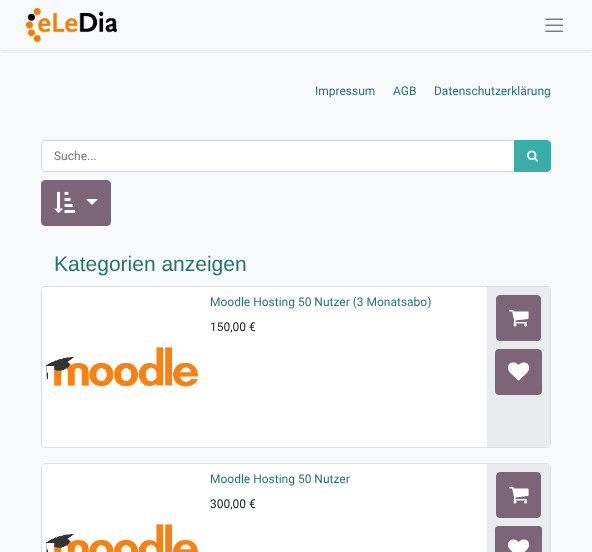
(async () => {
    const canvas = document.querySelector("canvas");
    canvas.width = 592;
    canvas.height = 552;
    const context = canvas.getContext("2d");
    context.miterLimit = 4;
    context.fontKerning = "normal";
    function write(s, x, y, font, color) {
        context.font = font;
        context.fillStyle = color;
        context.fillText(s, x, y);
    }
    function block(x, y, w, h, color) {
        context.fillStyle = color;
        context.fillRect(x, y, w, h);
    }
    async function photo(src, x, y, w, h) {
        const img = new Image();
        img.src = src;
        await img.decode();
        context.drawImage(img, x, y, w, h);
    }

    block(0, 0, 592, 552, "rgb(248, 249, 250)");
    context.save();
    context.beginPath();
    context.rect(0, 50, 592, 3);
    context.clip();
    context.fillStyle = "rgba(0, 0, 0, 0.07)";
    context.filter = "blur(2px)";
    context.beginPath();
    context.rect(0, 2, 592, 50);
    context.fill();
    context.filter = "none";
    context.restore();
    await photo("media/1.png", 26, 8, 91, 34);
    await photo("media/2.png", 545, 18, 19, 14);
    write("Impressum", 315, 95, "12px Roboto", "rgb(38, 115, 114)");
    write("AGB", 393, 95, "12px Roboto", "rgb(38, 115, 114)");
    write("Datenschutzerklärung", 434, 95, "12px Roboto", "rgb(38, 115, 114)");
    context.fillStyle = "rgb(255, 255, 255)";
    context.beginPath();
    context.roundRect(41.5, 140.5, 473, 31, [3.5, 0, 0, 3.5]);
    context.fill();
    context.strokeStyle = "rgb(206, 212, 218)";
    context.stroke();
    write("Suche...", 54, 160, "12px Roboto", "rgb(108, 117, 125)");
    context.fillStyle = "rgb(58, 173, 170)";
    context.beginPath();
    context.roundRect(514.5, 140.5, 36, 31, [0, 3.5, 3.5, 0]);
    context.fill();
    context.strokeStyle = "rgb(58, 173, 170)";
    context.stroke();
    await photo("media/3.png", 527, 150, 12, 12);
    context.fillStyle = "rgb(124, 101, 118)";
    context.beginPath();
    context.roundRect(41.5, 180.5, 69, 45, 3.5);
    context.fill();
    context.strokeStyle = "rgb(124, 101, 118)";
    context.stroke();
    await photo("media/4.png", 54, 191, 22, 22);
    context.fillStyle = "rgb(255, 255, 255)";
    context.beginPath();
    context.moveTo(86, 199);
    context.lineTo(98, 199);
    context.lineTo(92, 205);
    context.closePath();
    context.fill();
    write("Kategorien anzeigen", 54, 271, "21px Liberation Sans", "rgb(38, 115, 114)");
    context.fillStyle = "rgb(255, 255, 255)";
    context.beginPath();
    context.roundRect(41.5, 286.5, 509, 161, 3.5);
    context.fill();
    context.strokeStyle = "rgb(223, 223, 223)";
    context.stroke();
    context.fillStyle = "rgba(255, 255, 255, 0.9)";
    context.beginPath();
    context.roundRect(42, 287, 160, 160, [3, 3, 0, 3]);
    context.fill();
    await photo("media/5.png", 46, 347, 152, 40);
    context.beginPath();
    context.roundRect(202, 287, 348, 160, [0, 3, 3, 0]);
    context.fill();
    write("Moodle Hosting 50 Nutzer (3 Monatsabo)", 210, 306, "12px Roboto", "rgb(38, 115, 114)");
    write("150,00 €", 210, 331, "12px Roboto", "rgb(33, 37, 41)");
    context.fillStyle = "rgb(233, 236, 239)";
    context.beginPath();
    context.roundRect(487, 287, 63, 160, [0, 3, 3, 0]);
    context.fill();
    context.fillStyle = "rgb(124, 101, 118)";
    context.beginPath();
    context.roundRect(496.5, 295.5, 44, 45, 3.5);
    context.fill();
    context.strokeStyle = "rgb(124, 101, 118)";
    context.stroke();
    await photo("media/6.png", 509, 309, 20, 18);
    context.beginPath();
    context.roundRect(495.5, 349.5, 46, 45, 3.5);
    context.fill();
    context.stroke();
    await photo("media/7.png", 508, 362, 22, 19);
    context.fillStyle = "rgb(255, 255, 255)";
    context.beginPath();
    context.roundRect(41, 463, 510, 89, [4, 4, 0, 0]);
    context.fill();
    context.beginPath();
    context.roundRect(41.5, 463.5, 509, 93, 3.5);
    context.strokeStyle = "rgb(223, 223, 223)";
    context.stroke();
    context.fillStyle = "rgba(255, 255, 255, 0.9)";
    context.beginPath();
    context.roundRect(42, 464, 160, 88, [3, 3, 0, 0]);
    context.fill();
    await photo("media/8.png", 46, 524, 152, 28);
    context.beginPath();
    context.roundRect(202, 464, 348, 88, [0, 3, 0, 0]);
    context.fill();
    write("Moodle Hosting 50 Nutzer", 210, 483, "12px Roboto", "rgb(38, 115, 114)");
    write("300,00 €", 210, 508, "12px Roboto", "rgb(33, 37, 41)");
    context.fillStyle = "rgb(233, 236, 239)";
    context.beginPath();
    context.roundRect(487, 464, 63, 88, [0, 3, 0, 0]);
    context.fill();
    context.fillStyle = "rgb(124, 101, 118)";
    context.beginPath();
    context.roundRect(496.5, 472.5, 44, 45, 3.5);
    context.fill();
    context.strokeStyle = "rgb(124, 101, 118)";
    context.stroke();
    await photo("media/6.png", 509, 486, 20, 18);
    context.beginPath();
    context.roundRect(495, 526, 47, 26, [4, 4, 0, 0]);
    context.fill();
    context.beginPath();
    context.roundRect(495.5, 526.5, 46, 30, 3.5);
    context.stroke();
    await photo("media/9.png", 508, 539, 22, 13);
})();
